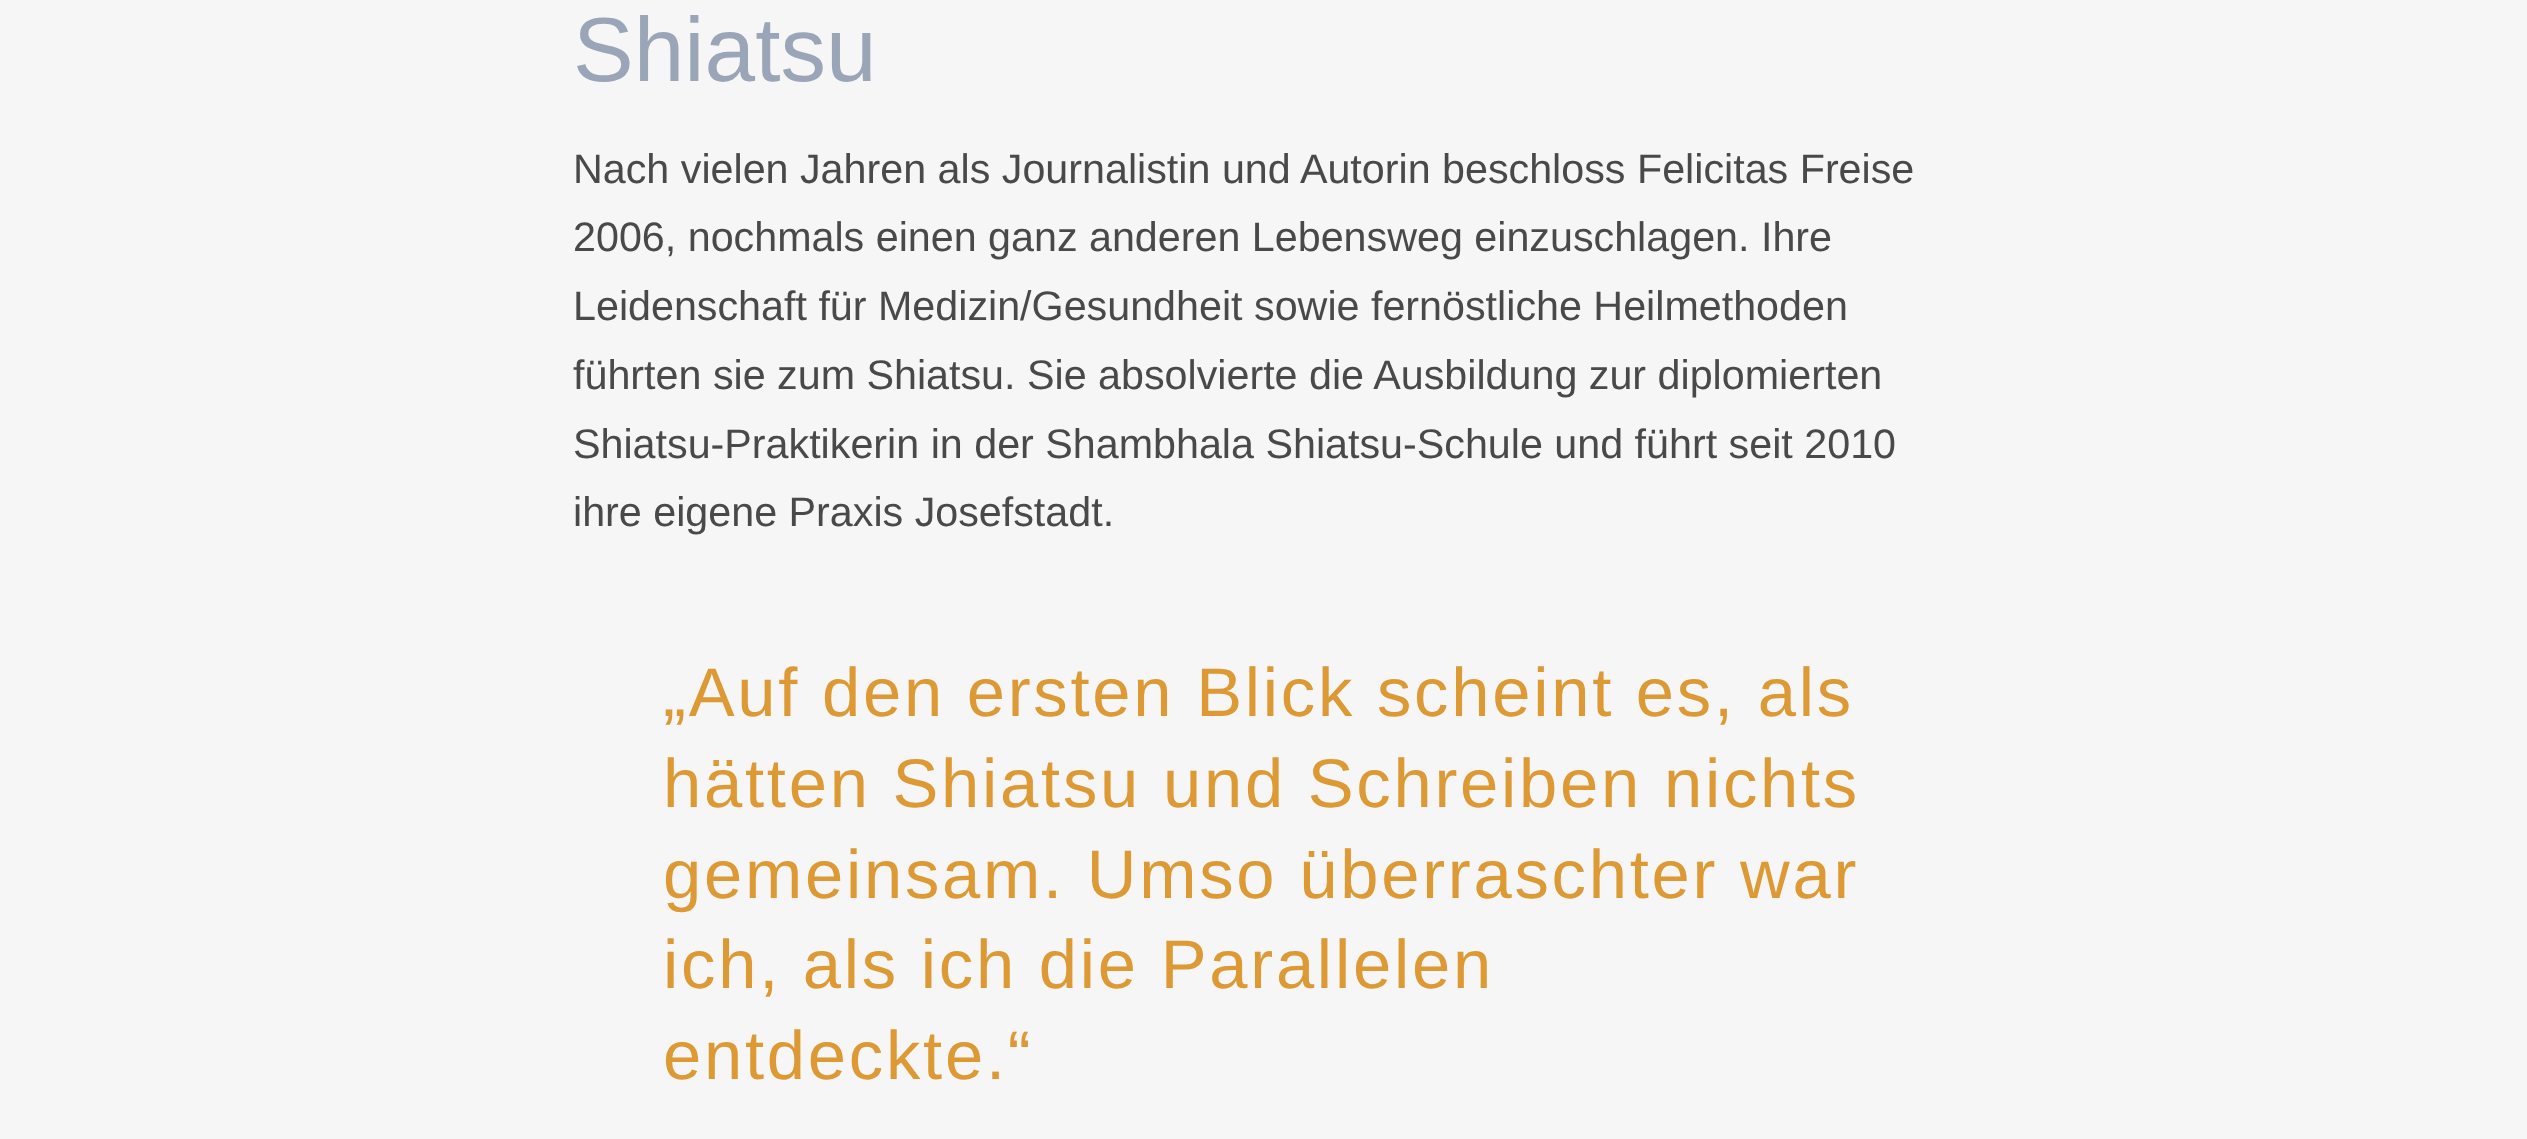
(async () => {
    const canvas = document.querySelector("canvas");
    canvas.width = 2527;
    canvas.height = 1139;
    const context = canvas.getContext("2d");
    context.miterLimit = 4;
    context.fontKerning = "normal";
    function write(s, x, y, font, color) {
        context.font = font;
        context.fillStyle = color;
        context.fillText(s, x, y);
    }
    function block(x, y, w, h, color) {
        context.fillStyle = color;
        context.fillRect(x, y, w, h);
    }

    block(0, 0, 2527, 1139, "rgb(246, 246, 246)");
    write("Shiatsu", 573, 81, "91px Liberation Sans", "rgb(154, 166, 183)");
    write("Nach vielen Jahren als Journalistin und Autorin beschloss Felicitas Freise", 573, 183, "41.25px Liberation Sans", "rgb(73, 73, 73)");
    write("2006, nochmals einen ganz anderen Lebensweg einzuschlagen. Ihre", 573, 251, "41.25px Liberation Sans", "rgb(73, 73, 73)");
    write("Leidenschaft für Medizin/Gesundheit sowie fernöstliche Heilmethoden", 573, 320, "41.25px Liberation Sans", "rgb(73, 73, 73)");
    write("führten sie zum Shiatsu. Sie absolvierte die Ausbildung zur diplomierten", 573, 389, "41.25px Liberation Sans", "rgb(73, 73, 73)");
    write("Shiatsu-Praktikerin in der Shambhala Shiatsu-Schule und führt seit 2010", 573, 458, "41.25px Liberation Sans", "rgb(73, 73, 73)");
    write("ihre eigene Praxis Josefstadt.", 573, 526, "41.25px Liberation Sans", "rgb(73, 73, 73)");
    context.letterSpacing = "2.75px";
    write("„Auf den ersten Blick scheint es, als", 663, 716, "68.75px Liberation Sans", "rgb(221, 153, 51)");
    write("hätten Shiatsu und Schreiben nichts", 663, 807, "68.75px Liberation Sans", "rgb(221, 153, 51)");
    write("gemeinsam. Umso überraschter war", 663, 898, "68.75px Liberation Sans", "rgb(221, 153, 51)");
    write("ich, als ich die Parallelen", 663, 988, "68.75px Liberation Sans", "rgb(221, 153, 51)");
    write("entdeckte.“", 663, 1079, "68.75px Liberation Sans", "rgb(221, 153, 51)");
})();
